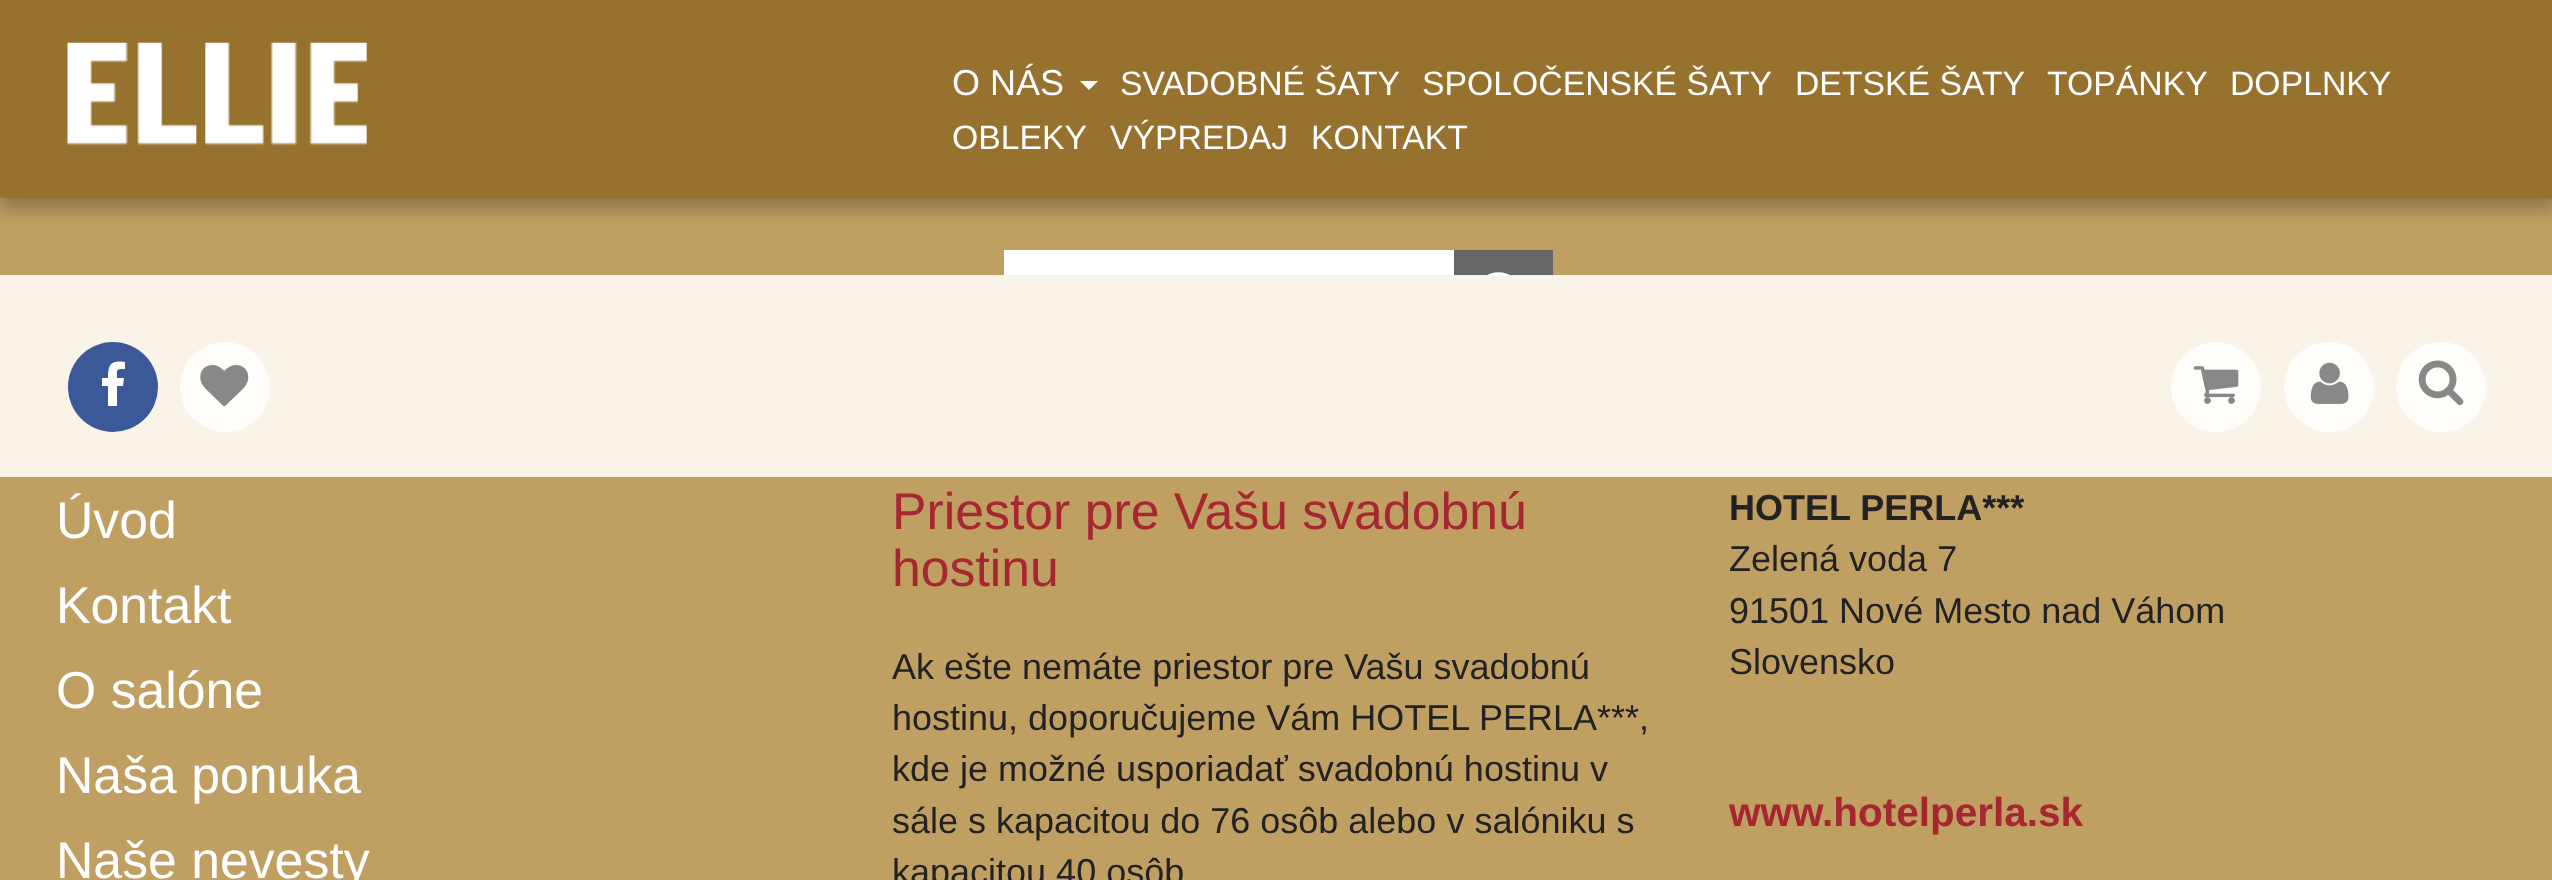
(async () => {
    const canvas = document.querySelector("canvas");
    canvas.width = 2552;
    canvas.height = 880;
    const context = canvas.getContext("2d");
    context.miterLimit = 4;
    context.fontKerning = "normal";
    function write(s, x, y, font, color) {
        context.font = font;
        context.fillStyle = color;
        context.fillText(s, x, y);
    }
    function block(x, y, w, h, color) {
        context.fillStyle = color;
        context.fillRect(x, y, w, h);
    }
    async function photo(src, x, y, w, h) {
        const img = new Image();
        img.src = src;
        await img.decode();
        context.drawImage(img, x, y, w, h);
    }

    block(0, 0, 2552, 880, "rgb(192, 160, 98)");
    context.fillStyle = "rgba(20, 20, 20, 0.3)";
    context.filter = "blur(9px)";
    context.beginPath();
    context.rect(0, 7, 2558, 202);
    context.fill();
    context.filter = "none";
    block(0, 0, 2552, 198, "rgb(151, 113, 46)");
    await photo("media/1.png", 67, 42, 300, 104);
    write("O NÁS", 952, 95, "36px Liberation Sans", "rgb(255, 255, 255)");
    context.beginPath();
    context.moveTo(1080, 81);
    context.lineTo(1098, 81);
    context.lineTo(1089, 90);
    context.closePath();
    context.fill();
    write("SVADOBNÉ ŠATY", 1120, 95, "33.75px Liberation Sans", "rgb(255, 255, 255)");
    write("SPOLOČENSKÉ ŠATY", 1422, 95, "33.75px Liberation Sans", "rgb(255, 255, 255)");
    write("DETSKÉ ŠATY", 1795, 95, "33.75px Liberation Sans", "rgb(255, 255, 255)");
    write("TOPÁNKY", 2047, 95, "33.75px Liberation Sans", "rgb(255, 255, 255)");
    write("DOPLNKY", 2230, 95, "33.75px Liberation Sans", "rgb(255, 255, 255)");
    write("OBLEKY", 952, 149, "33.75px Liberation Sans", "rgb(255, 255, 255)");
    write("VÝPREDAJ", 1110, 149, "33.75px Liberation Sans", "rgb(255, 255, 255)");
    write("KONTAKT", 1311, 149, "33.75px Liberation Sans", "rgb(255, 255, 255)");
    block(0, 275, 2552, 202, "rgb(250, 244, 232)");
    context.fillStyle = "rgb(59, 89, 152)";
    context.beginPath();
    context.arc(113, 387, 45, 0, Math.PI * 2);
    context.fill();
    context.fillStyle = "rgb(255, 255, 255)";
    context.beginPath();
    context.moveTo(125, 362);
    context.lineTo(125, 369);
    context.bezierCurveTo(116, 369, 117, 369, 117, 378);
    context.lineTo(124, 378);
    context.lineTo(123, 386);
    context.lineTo(117, 386);
    context.lineTo(117, 406);
    context.lineTo(108, 406);
    context.lineTo(108, 386);
    context.lineTo(102, 386);
    context.lineTo(102, 378);
    context.lineTo(108, 378);
    context.bezierCurveTo(108, 365, 110, 360, 125, 362);
    context.closePath();
    context.fill();
    context.fillStyle = "rgb(255, 253, 250)";
    context.beginPath();
    context.arc(225, 387, 45, 0, Math.PI * 2);
    context.fill();
    await photo("media/2.png", 200, 365, 49, 42);
    context.beginPath();
    context.arc(2216, 387, 45, 0, Math.PI * 2);
    context.fill();
    await photo("media/3.png", 2193, 366, 46, 38);
    context.beginPath();
    context.arc(2329, 387, 45, 0, Math.PI * 2);
    context.fill();
    await photo("media/4.png", 2310, 362, 39, 42);
    context.beginPath();
    context.arc(2441, 387, 45, 0, Math.PI * 2);
    context.fill();
    await photo("media/5.png", 2418, 360, 46, 46);
    block(1004, 250, 450, 25, "rgb(255, 255, 255)");
    block(1454, 250, 99, 25, "rgb(102, 102, 102)");
    await photo("media/6.png", 1487, 272, 23, 3);
    write("Úvod", 56, 538, "51.75px Liberation Sans", "rgb(255, 255, 255)");
    write("Kontakt", 56, 623, "51.75px Liberation Sans", "rgb(255, 255, 255)");
    write("O salóne", 56, 708, "51.75px Liberation Sans", "rgb(255, 255, 255)");
    write("Naša ponuka", 56, 793, "51.75px Liberation Sans", "rgb(255, 255, 255)");
    write("Naše nevesty", 56, 878, "51.75px Liberation Sans", "rgb(255, 255, 255)");
    write("Priestor pre Vašu svadobnú", 892, 529, "51.75px Liberation Sans", "rgb(166, 38, 49)");
    write("hostinu", 892, 586, "51.75px Liberation Sans", "rgb(166, 38, 49)");
    write("Ak ešte nemáte priestor pre Vašu svadobnú", 892, 679, "36px Liberation Sans", "rgb(34, 34, 34)");
    write("hostinu, doporučujeme Vám HOTEL PERLA***,", 892, 730, "36px Liberation Sans", "rgb(34, 34, 34)");
    write("kde je možné usporiadať svadobnú hostinu v", 892, 781, "36px Liberation Sans", "rgb(34, 34, 34)");
    write("sále s kapacitou do 76 osôb alebo v salóniku s", 892, 833, "36px Liberation Sans", "rgb(34, 34, 34)");
    write("kapacitou 40 osôb", 892, 884, "36px Liberation Sans", "rgb(34, 34, 34)");
    write("HOTEL PERLA***", 1729, 520, "bold 36px Liberation Sans", "rgb(34, 34, 34)");
    write("Zelená voda 7", 1729, 571, "36px Liberation Sans", "rgb(34, 34, 34)");
    write("91501 Nové Mesto nad Váhom", 1729, 623, "36px Liberation Sans", "rgb(34, 34, 34)");
    write("Slovensko", 1729, 674, "36px Liberation Sans", "rgb(34, 34, 34)");
    write("www.hotelperla.sk", 1729, 826, "bold 40.5px Liberation Sans", "rgb(166, 38, 49)");
})();
